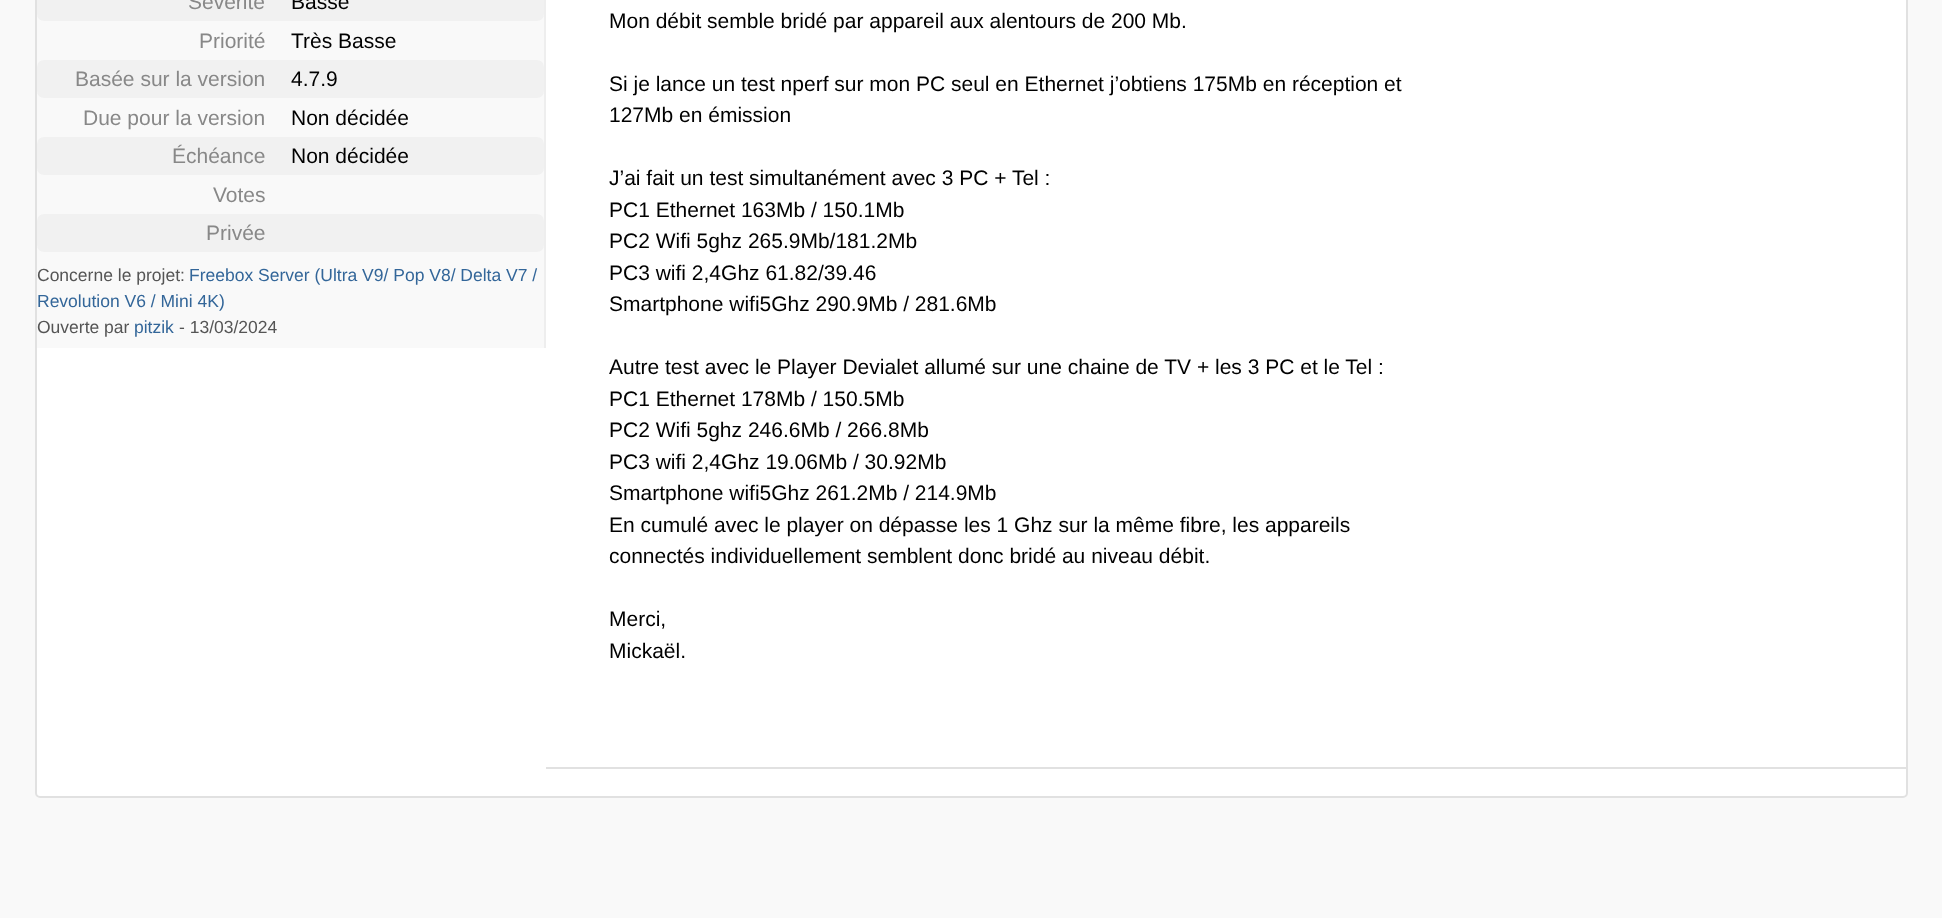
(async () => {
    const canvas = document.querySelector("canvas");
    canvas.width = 1942;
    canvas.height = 918;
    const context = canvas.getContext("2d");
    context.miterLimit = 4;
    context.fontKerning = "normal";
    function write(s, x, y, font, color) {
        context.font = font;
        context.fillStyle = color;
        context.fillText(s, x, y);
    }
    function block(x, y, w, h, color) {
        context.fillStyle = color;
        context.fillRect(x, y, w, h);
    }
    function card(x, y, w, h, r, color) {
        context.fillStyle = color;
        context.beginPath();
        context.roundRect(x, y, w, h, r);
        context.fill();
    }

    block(0, 0, 1942, 918, "rgb(249, 249, 249)");
    context.fillStyle = "rgb(255, 255, 255)";
    context.beginPath();
    context.roundRect(36, -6, 1871, 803, 4);
    context.fill();
    context.strokeStyle = "rgb(225, 225, 225)";
    context.lineWidth = 2;
    context.stroke();
    block(37, 14, 507, 334, "rgb(249, 249, 249)");
    block(544, 0, 2, 348, "rgb(238, 238, 238)");
    card(37, -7, 507, 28, 7, "rgb(241, 241, 241)");
    write("Sévérité", 188, 9, "21px Liberation Sans", "rgb(136, 136, 136)");
    write("Basse", 291, 9, "21px Liberation Sans", "rgb(0, 0, 0)");
    write("Priorité", 199, 48, "21px Liberation Sans", "rgb(136, 136, 136)");
    write("Très Basse", 291, 48, "21px Liberation Sans", "rgb(0, 0, 0)");
    card(37, 60, 507, 38, 7, "rgb(241, 241, 241)");
    write("Basée sur la version", 75, 86, "21px Liberation Sans", "rgb(136, 136, 136)");
    write("4.7.9", 291, 86, "21px Liberation Sans", "rgb(0, 0, 0)");
    write("Due pour la version", 83, 125, "21px Liberation Sans", "rgb(136, 136, 136)");
    write("Non décidée", 291, 125, "21px Liberation Sans", "rgb(0, 0, 0)");
    card(37, 137, 507, 38, 7, "rgb(241, 241, 241)");
    write("Échéance", 172, 163, "21px Liberation Sans", "rgb(136, 136, 136)");
    write("Non décidée", 291, 163, "21px Liberation Sans", "rgb(0, 0, 0)");
    write("Votes", 213, 202, "21px Liberation Sans", "rgb(136, 136, 136)");
    card(37, 214, 507, 38, 7, "rgb(241, 241, 241)");
    write("Privée", 206, 240, "21px Liberation Sans", "rgb(136, 136, 136)");
    write("Concerne le projet:", 37, 281, "17.5px Liberation Sans", "rgb(85, 85, 85)");
    write("Freebox Server (Ultra V9/ Pop V8/ Delta V7 /", 189, 281, "17.5px Liberation Sans", "rgb(51, 102, 153)");
    write("Revolution V6 / Mini 4K)", 37, 307, "17.5px Liberation Sans", "rgb(51, 102, 153)");
    write("Ouverte par", 37, 333, "17.5px Liberation Sans", "rgb(85, 85, 85)");
    write("pitzik", 134, 333, "17.5px Liberation Sans", "rgb(51, 102, 153)");
    write("- 13/03/2024", 179, 333, "17.5px Liberation Sans", "rgb(85, 85, 85)");
    write("Mon débit semble bridé par appareil aux alentours de 200 Mb.", 609, 28, "21px Liberation Sans", "rgb(0, 0, 0)");
    write("Si je lance un test nperf sur mon PC seul en Ethernet j’obtiens 175Mb en réception et", 609, 91, "21px Liberation Sans", "rgb(0, 0, 0)");
    write("127Mb en émission", 609, 122, "21px Liberation Sans", "rgb(0, 0, 0)");
    write("J’ai fait un test simultanément avec 3 PC + Tel :", 609, 185, "21px Liberation Sans", "rgb(0, 0, 0)");
    write("PC1 Ethernet 163Mb / 150.1Mb", 609, 217, "21px Liberation Sans", "rgb(0, 0, 0)");
    write("PC2 Wifi 5ghz 265.9Mb/181.2Mb", 609, 248, "21px Liberation Sans", "rgb(0, 0, 0)");
    write("PC3 wifi 2,4Ghz 61.82/39.46", 609, 280, "21px Liberation Sans", "rgb(0, 0, 0)");
    write("Smartphone wifi5Ghz 290.9Mb / 281.6Mb", 609, 311, "21px Liberation Sans", "rgb(0, 0, 0)");
    write("Autre test avec le Player Devialet allumé sur une chaine de TV + les 3 PC et le Tel :", 609, 374, "21px Liberation Sans", "rgb(0, 0, 0)");
    write("PC1 Ethernet 178Mb / 150.5Mb", 609, 406, "21px Liberation Sans", "rgb(0, 0, 0)");
    write("PC2 Wifi 5ghz 246.6Mb / 266.8Mb", 609, 437, "21px Liberation Sans", "rgb(0, 0, 0)");
    write("PC3 wifi 2,4Ghz 19.06Mb / 30.92Mb", 609, 469, "21px Liberation Sans", "rgb(0, 0, 0)");
    write("Smartphone wifi5Ghz 261.2Mb / 214.9Mb", 609, 500, "21px Liberation Sans", "rgb(0, 0, 0)");
    write("En cumulé avec le player on dépasse les 1 Ghz sur la même fibre, les appareils", 609, 532, "21px Liberation Sans", "rgb(0, 0, 0)");
    write("connectés individuellement semblent donc bridé au niveau débit.", 609, 563, "21px Liberation Sans", "rgb(0, 0, 0)");
    write("Merci,", 609, 626, "21px Liberation Sans", "rgb(0, 0, 0)");
    write("Mickaël.", 609, 658, "21px Liberation Sans", "rgb(0, 0, 0)");
    block(546, 767, 1360, 2, "rgb(225, 225, 225)");
})();
